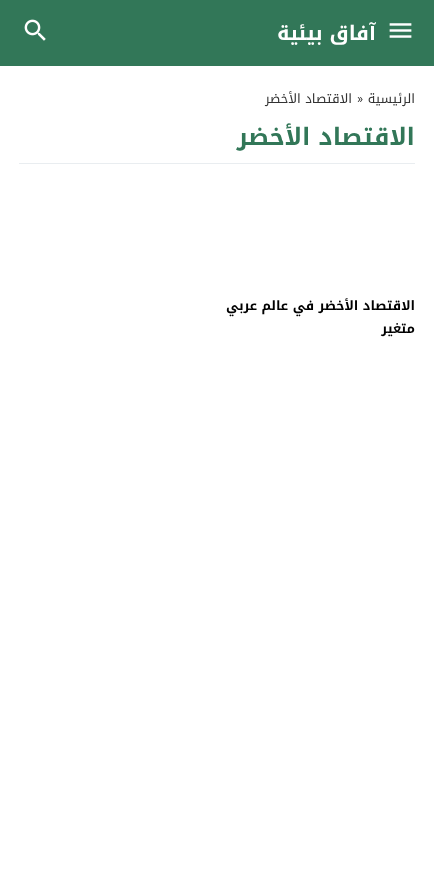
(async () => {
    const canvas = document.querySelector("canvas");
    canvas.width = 434;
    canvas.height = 888;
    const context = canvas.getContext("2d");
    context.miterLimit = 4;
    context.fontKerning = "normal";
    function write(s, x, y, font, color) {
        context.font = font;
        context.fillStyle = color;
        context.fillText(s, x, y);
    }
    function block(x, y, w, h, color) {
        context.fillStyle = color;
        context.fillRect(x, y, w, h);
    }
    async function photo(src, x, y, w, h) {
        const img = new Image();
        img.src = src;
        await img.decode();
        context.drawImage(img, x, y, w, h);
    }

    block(0, 0, 434, 888, "rgb(255, 255, 255)");
    block(0, 0, 434, 66, "rgb(50, 119, 88)");
    await photo("media/1.png", 389, 23, 23, 15);
    context.direction = "rtl";
    write("آفاق بيئية", 376, 40, "bold 20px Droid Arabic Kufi", "rgb(255, 255, 255)");
    await photo("media/2.png", 24, 19, 22, 22);
    write("الرئيسية", 415, 103, "13px Droid Arabic Kufi", "rgb(51, 51, 51)");
    context.direction = "ltr";
    write("»", 357, 103, "13px Roboto", "rgb(51, 51, 51)");
    context.direction = "rtl";
    write("الاقتصاد الأخضر", 352, 103, "13px Droid Arabic Kufi", "rgb(51, 51, 51)");
    block(19, 163, 396, 1, "rgb(233, 237, 240)");
    write("الاقتصاد الأخضر", 415, 145, "bold 24px Droid Arabic Kufi", "rgb(50, 119, 88)");
    write("الاقتصاد الأخضر في عالم عربي", 415, 310, "bold 13px Droid Arabic Kufi", "rgb(0, 0, 0)");
    write("متغير", 415, 333, "bold 13px Droid Arabic Kufi", "rgb(0, 0, 0)");
})();
